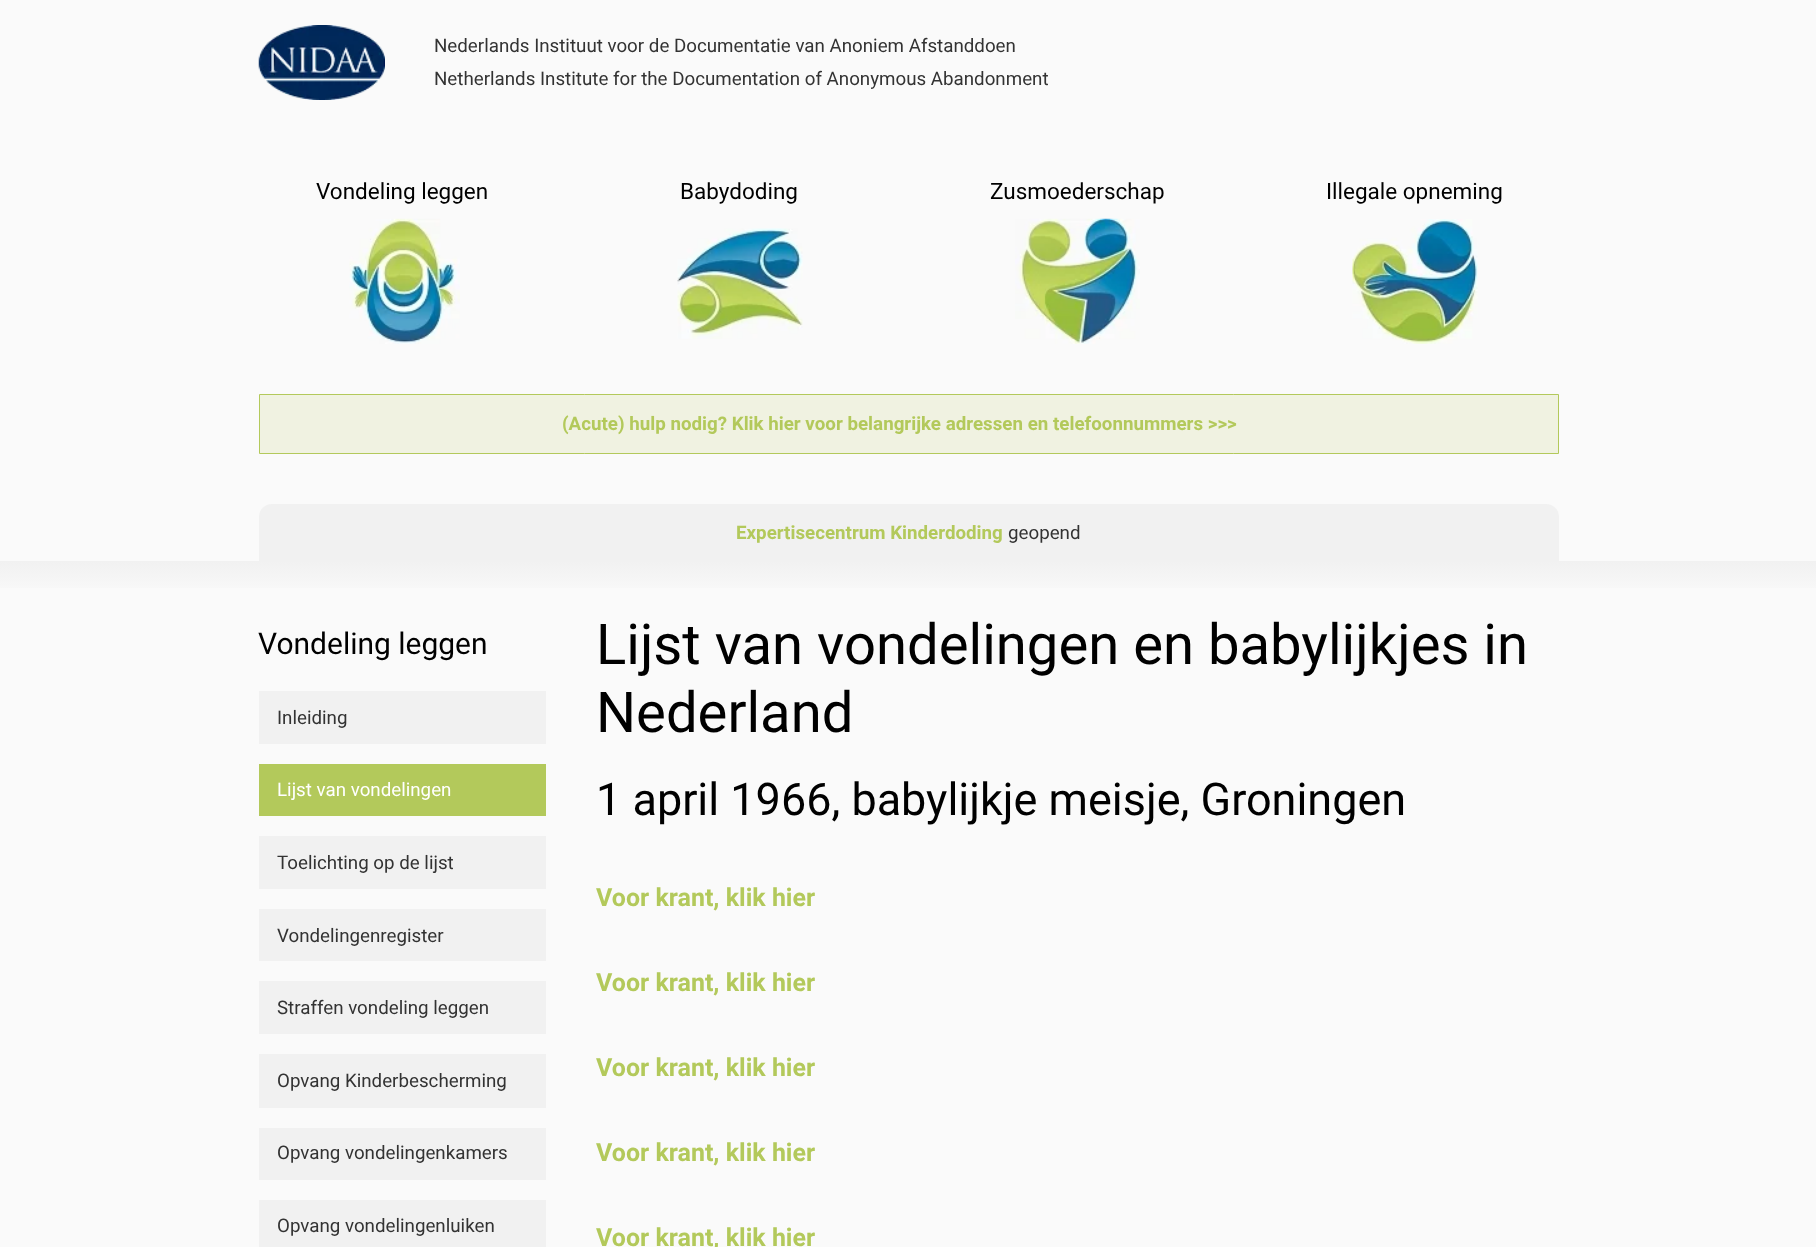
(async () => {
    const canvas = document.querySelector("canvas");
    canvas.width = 1816;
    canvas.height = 1247;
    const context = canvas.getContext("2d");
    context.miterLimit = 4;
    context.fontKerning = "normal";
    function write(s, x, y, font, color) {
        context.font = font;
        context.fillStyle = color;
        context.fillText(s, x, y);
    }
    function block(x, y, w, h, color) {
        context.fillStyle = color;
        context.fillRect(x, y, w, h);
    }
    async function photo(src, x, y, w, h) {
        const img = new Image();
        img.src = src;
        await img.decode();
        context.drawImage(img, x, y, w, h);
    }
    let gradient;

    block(0, 0, 1816, 1247, "rgb(250, 250, 250)");
    await photo("media/1.png", 258, 25, 127, 75);
    write("Nederlands Instituut voor de Documentatie van Anoniem Afstanddoen", 434, 52, "18.75px Roboto", "rgb(51, 51, 51)");
    write("Netherlands Institute for the Documentation of Anonymous Abandonment", 434, 85, "18.75px Roboto", "rgb(51, 51, 51)");
    write("Vondeling leggen", 316, 199, "22.5px Roboto", "rgb(0, 0, 0)");
    await photo("media/2.png", 349, 218, 111, 126);
    write("Babydoding", 680, 199, "22.5px Roboto", "rgb(0, 0, 0)");
    await photo("media/3.png", 677, 228, 126, 111);
    write("Zusmoederschap", 990, 199, "22.5px Roboto", "rgb(0, 0, 0)");
    await photo("media/4.png", 1015, 218, 125, 126);
    write("Illegale opneming", 1326, 199, "22.5px Roboto", "rgb(0, 0, 0)");
    await photo("media/5.png", 1352, 219, 126, 125);
    context.fillStyle = "rgb(240, 242, 225)";
    context.beginPath();
    context.rect(259.5, 394.5, 1299, 59);
    context.fill();
    context.strokeStyle = "rgb(179, 201, 91)";
    context.stroke();
    write("(Acute) hulp nodig? Klik hier voor belangrijke adressen en telefoonnummers >>>", 562, 430, "bold 18.75px Roboto", "rgb(179, 201, 91)");
    context.fillStyle = "rgb(241, 241, 241)";
    context.beginPath();
    context.roundRect(259, 504, 1300, 57, [13, 13, 0, 0]);
    context.fill();
    write("Expertisecentrum Kinderdoding", 736, 539, "bold 18.75px Roboto", "rgb(179, 201, 91)");
    write("geopend", 1008, 539, "18.75px Roboto", "rgb(51, 51, 51)");
    gradient = context.createLinearGradient(908, 561, 908, 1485);
    gradient.addColorStop(0, "rgb(241, 241, 241)");
    gradient.addColorStop(0.04, "rgb(250, 250, 250)");
    gradient.addColorStop(1, "rgb(250, 250, 250)");
    context.fillStyle = gradient;
    context.fillRect(0, 561, 1816, 27);
    write("Vondeling leggen", 258, 654, "30px Roboto", "rgb(0, 0, 0)");
    block(259, 691, 287, 53, "rgb(241, 241, 241)");
    write("Inleiding", 277, 724, "18.75px Roboto", "rgb(51, 51, 51)");
    block(259, 764, 287, 52, "rgb(179, 201, 91)");
    write("Lijst van vondelingen", 277, 796, "18.75px Roboto", "rgb(255, 255, 255)");
    block(259, 836, 287, 53, "rgb(241, 241, 241)");
    write("Toelichting op de lijst", 277, 869, "18.75px Roboto", "rgb(51, 51, 51)");
    block(259, 909, 287, 52, "rgb(241, 241, 241)");
    write("Vondelingenregister", 277, 942, "18.75px Roboto", "rgb(51, 51, 51)");
    block(259, 981, 287, 53, "rgb(241, 241, 241)");
    write("Straffen vondeling leggen", 277, 1014, "18.75px Roboto", "rgb(51, 51, 51)");
    block(259, 1054, 287, 54, "rgb(241, 241, 241)");
    write("Opvang Kinderbescherming", 277, 1087, "18.75px Roboto", "rgb(51, 51, 51)");
    block(259, 1128, 287, 52, "rgb(241, 241, 241)");
    write("Opvang vondelingenkamers", 277, 1159, "18.75px Roboto", "rgb(51, 51, 51)");
    block(259, 1200, 287, 47, "rgb(241, 241, 241)");
    write("Opvang vondelingenluiken", 277, 1232, "18.75px Roboto", "rgb(51, 51, 51)");
    write("Lijst van vondelingen en babylijkjes in", 596, 664, "56.25px Roboto", "rgb(0, 0, 0)");
    write("Nederland", 596, 732, "56.25px Roboto", "rgb(0, 0, 0)");
    write("1 april 1966, babylijkje meisje, Groningen", 596, 815, "45px Roboto", "rgb(0, 0, 0)");
    write("Voor krant, klik hier", 596, 906, "bold 25px Roboto", "rgb(179, 201, 91)");
    write("Voor krant, klik hier", 596, 991, "bold 25px Roboto", "rgb(179, 201, 91)");
    write("Voor krant, klik hier", 596, 1076, "bold 25px Roboto", "rgb(179, 201, 91)");
    write("Voor krant, klik hier", 596, 1161, "bold 25px Roboto", "rgb(179, 201, 91)");
    write("Voor krant, klik hier", 596, 1246, "bold 25px Roboto", "rgb(179, 201, 91)");
})();
